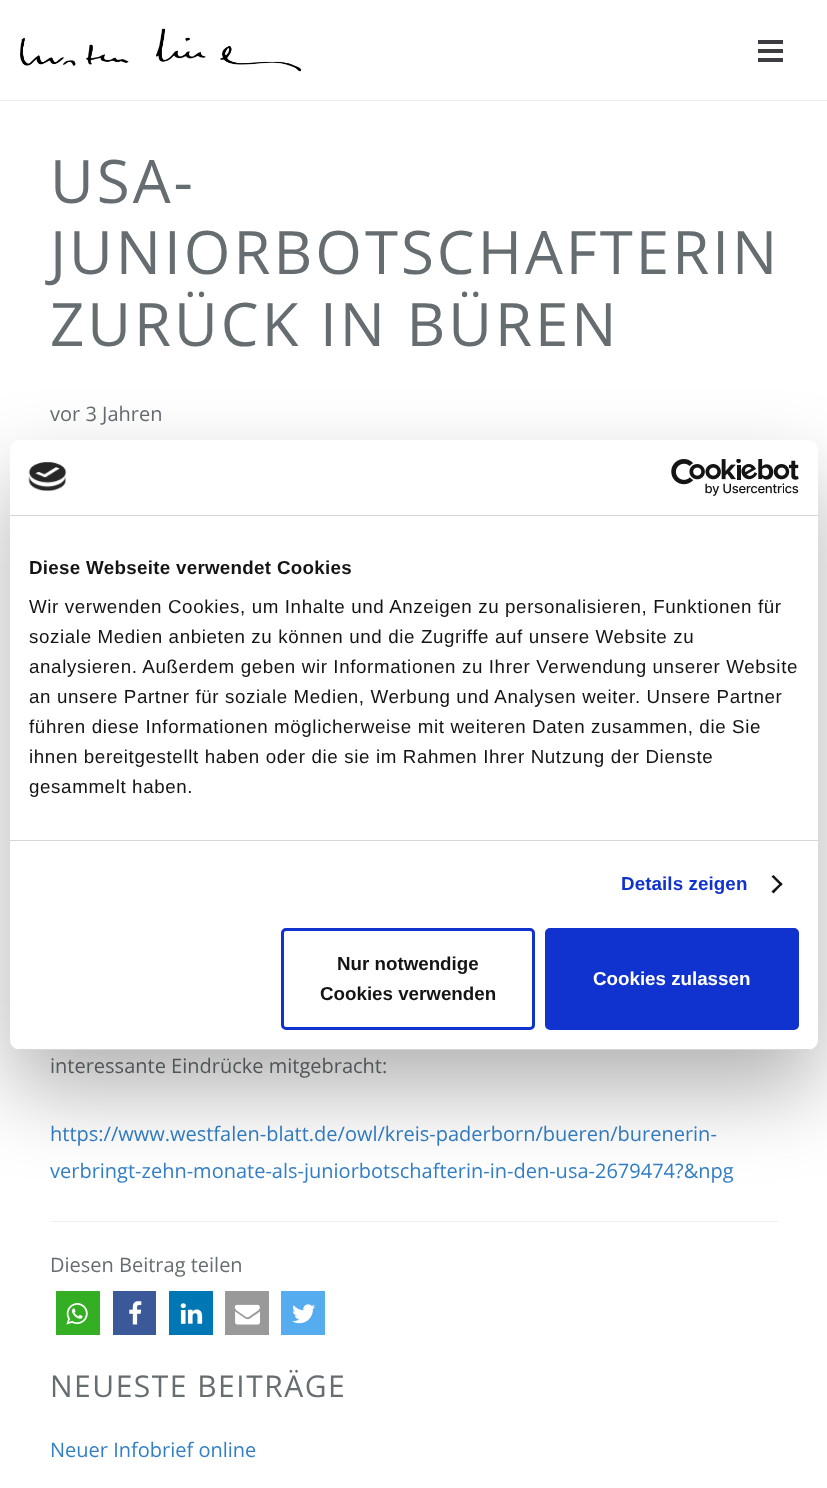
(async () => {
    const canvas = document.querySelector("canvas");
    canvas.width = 827;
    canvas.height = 1488;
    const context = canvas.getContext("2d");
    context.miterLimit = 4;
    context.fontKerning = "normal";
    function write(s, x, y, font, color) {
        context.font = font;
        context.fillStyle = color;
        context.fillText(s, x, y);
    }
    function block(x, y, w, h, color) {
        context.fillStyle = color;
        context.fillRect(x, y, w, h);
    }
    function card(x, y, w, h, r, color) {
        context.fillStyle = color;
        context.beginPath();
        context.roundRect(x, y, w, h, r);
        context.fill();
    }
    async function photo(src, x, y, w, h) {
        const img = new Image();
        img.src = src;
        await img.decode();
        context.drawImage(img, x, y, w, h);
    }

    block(0, 0, 827, 1488, "rgb(255, 255, 255)");
    context.fillStyle = "rgb(235, 235, 235)";
    context.beginPath();
    context.moveTo(0, 100);
    context.lineTo(0, 101);
    context.lineTo(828, 101);
    context.lineTo(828, 1);
    context.lineTo(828, 100);
    context.closePath();
    context.fill();
    await photo("media/1.png", 20, 28, 282, 44);
    block(758, 49, 25, 4, "rgb(59, 61, 64)");
    block(758, 40, 25, 4, "rgb(59, 61, 64)");
    block(758, 58, 25, 4, "rgb(59, 61, 64)");
    context.letterSpacing = "3px";
    write("USA-", 50, 203, "60px Open Sans", "rgb(102, 109, 112)");
    write("JUNIORBOTSCHAFTERIN", 50, 274, "60px Open Sans", "rgb(102, 109, 112)");
    write("ZURÜCK IN BÜREN", 50, 346, "60px Open Sans", "rgb(102, 109, 112)");
    context.letterSpacing = "0px";
    write("vor 3 Jahren", 50, 421, "20px Open Sans", "rgb(102, 109, 112)");
    write("interessante Eindrücke mitgebracht:", 50, 1073, "20px Open Sans", "rgb(102, 109, 112)");
    write("https://www.westfalen-blatt.de/owl/kreis-paderborn/bueren/burenerin-", 50, 1141, "20px Open Sans", "rgb(51, 127, 199)");
    write("verbringt-zehn-monate-als-juniorbotschafterin-in-den-usa-2679474?&npg", 50, 1178, "20px Open Sans", "rgb(51, 127, 199)");
    block(50, 1221, 728, 1, "rgb(238, 238, 238)");
    write("Diesen Beitrag teilen", 50, 1272, "20px Open Sans", "rgb(102, 109, 112)");
    card(56, 1291, 44, 44, 0.5, "rgb(52, 175, 35)");
    await photo("media/2.png", 66, 1303, 22, 22);
    card(113, 1291, 43, 44, 0.5, "rgb(59, 89, 152)");
    await photo("media/3.png", 129, 1301, 13, 24);
    card(169, 1291, 44, 44, 0.5, "rgb(0, 119, 181)");
    await photo("media/4.png", 180, 1303, 23, 21);
    card(225, 1291, 44, 44, 0.5, "rgb(153, 153, 153)");
    await photo("media/5.png", 234, 1304, 26, 21);
    card(281, 1291, 44, 44, 0.5, "rgb(85, 172, 238)");
    await photo("media/6.png", 292, 1304, 23, 20);
    context.letterSpacing = "1.5px";
    write("NEUESTE BEITRÄGE", 50, 1397, "30px Open Sans", "rgb(102, 109, 112)");
    context.letterSpacing = "0px";
    write("Neuer Infobrief online", 50, 1457, "20px Open Sans", "rgb(51, 127, 199)");
    context.fillStyle = "rgba(0, 0, 0, 0.3)";
    context.filter = "blur(42.5px)";
    context.beginPath();
    context.roundRect(10, 480, 808, 610, 10);
    context.fill();
    context.filter = "none";
    card(10, 440, 808, 610, 10, "rgb(255, 255, 255)");
    block(10, 515, 808, 1, "rgb(214, 214, 214)");
    await photo("media/7.png", 28, 462, 39, 29);
    await photo("media/8.png", 671, 459, 128, 37);
    block(10, 840, 808, 1, "rgb(214, 214, 214)");
    context.letterSpacing = "0.3px";
    write("Diese Webseite verwendet Cookies", 29, 574, "bold 18.75px Liberation Sans", "rgb(20, 20, 20)");
    context.letterSpacing = "0.62px";
    write("Wir verwenden Cookies, um Inhalte und Anzeigen zu personalisieren, Funktionen für", 29, 613, "18.75px Liberation Sans", "rgb(20, 20, 20)");
    write("soziale Medien anbieten zu können und die Zugriffe auf unsere Website zu", 29, 643, "18.75px Liberation Sans", "rgb(20, 20, 20)");
    write("analysieren. Außerdem geben wir Informationen zu Ihrer Verwendung unserer Website", 29, 673, "18.75px Liberation Sans", "rgb(20, 20, 20)");
    write("an unsere Partner für soziale Medien, Werbung und Analysen weiter. Unsere Partner", 29, 703, "18.75px Liberation Sans", "rgb(20, 20, 20)");
    write("führen diese Informationen möglicherweise mit weiteren Daten zusammen, die Sie", 29, 733, "18.75px Liberation Sans", "rgb(20, 20, 20)");
    write("ihnen bereitgestellt haben oder die sie im Rahmen Ihrer Nutzung der Dienste", 29, 763, "18.75px Liberation Sans", "rgb(20, 20, 20)");
    write("gesammelt haben.", 29, 793, "18.75px Liberation Sans", "rgb(20, 20, 20)");
    context.letterSpacing = "0.1px";
    write("Details zeigen", 621, 890, "bold 18.75px Liberation Sans", "rgb(16, 50, 207)");
    context.fillStyle = "rgb(20, 20, 20)";
    context.beginPath();
    context.moveTo(773.5, 875);
    context.lineTo(782.5, 884);
    context.lineTo(781, 886);
    context.lineTo(771.5, 876.5);
    context.closePath();
    context.fill();
    context.beginPath();
    context.moveTo(781, 882.5);
    context.lineTo(782.5, 884);
    context.lineTo(773.5, 893.5);
    context.lineTo(771.5, 891.5);
    context.closePath();
    context.fill();
    context.save();
    context.beginPath();
    context.roundRect(10, 440, 808, 610, 10);
    context.clip();
    block(10, 1049, 808, 1, "rgb(214, 214, 214)");
    context.restore();
    context.beginPath();
    context.roundRect(282.5, 929.5, 251, 99, 3.5);
    context.strokeStyle = "rgb(16, 50, 207)";
    context.lineWidth = 3;
    context.stroke();
    context.letterSpacing = "0px";
    write("Nur notwendige", 337, 970, "bold 18.75px Liberation Sans", "rgb(20, 20, 20)");
    write("Cookies verwenden", 320, 1000, "bold 18.75px Liberation Sans", "rgb(20, 20, 20)");
    context.fillStyle = "rgb(16, 50, 207)";
    context.beginPath();
    context.roundRect(546.5, 929.5, 251, 99, 3.5);
    context.fill();
    context.stroke();
    write("Cookies zulassen", 593, 985, "bold 18.75px Liberation Sans", "rgb(255, 255, 255)");
})();
